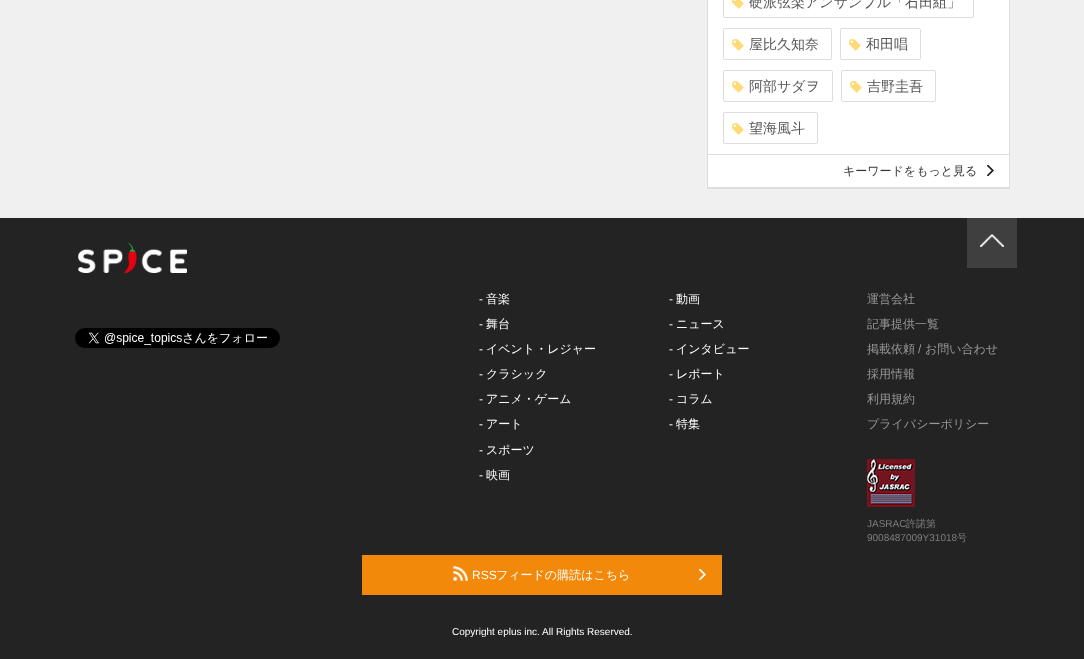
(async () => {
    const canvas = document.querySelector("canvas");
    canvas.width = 1084;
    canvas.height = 659;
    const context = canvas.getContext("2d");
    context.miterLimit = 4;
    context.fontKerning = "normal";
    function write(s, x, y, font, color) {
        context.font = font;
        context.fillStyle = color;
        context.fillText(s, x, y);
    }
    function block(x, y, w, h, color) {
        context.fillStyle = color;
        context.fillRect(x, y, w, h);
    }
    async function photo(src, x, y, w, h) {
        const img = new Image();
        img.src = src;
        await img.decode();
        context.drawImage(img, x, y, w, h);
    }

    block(0, 0, 1084, 659, "rgb(240, 240, 240)");
    context.fillStyle = "rgb(221, 221, 221)";
    context.beginPath();
    context.moveTo(707, -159);
    context.lineTo(707, 189);
    context.lineTo(1010, 189);
    context.lineTo(1010, -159);
    context.lineTo(1009, -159);
    context.lineTo(1009, 187);
    context.lineTo(708, 187);
    context.lineTo(708, -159);
    context.closePath();
    context.fill();
    block(708, 0, 301, 187, "rgb(255, 255, 255)");
    block(708, 154, 301, 1, "rgb(221, 221, 221)");
    context.beginPath();
    context.roundRect(723.5, -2.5, 250, 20, 1.5);
    context.strokeStyle = "rgb(221, 221, 221)";
    context.stroke();
    await photo("media/1.png", 732, 0, 12, 9);
    write("硬派弦楽アンサンブル「石田組」", 749, 7, "500 14px WenQuanYi Zen Hei", "rgb(86, 86, 86)");
    context.beginPath();
    context.roundRect(723.5, 28.5, 108, 31, 1.5);
    context.stroke();
    await photo("media/2.png", 732, 39, 12, 12);
    write("屋比久知奈", 749, 49, "500 14px WenQuanYi Zen Hei", "rgb(86, 86, 86)");
    context.beginPath();
    context.roundRect(840.5, 28.5, 80, 31, 1.5);
    context.stroke();
    await photo("media/2.png", 849, 39, 12, 12);
    write("和田唱", 866, 49, "500 14px WenQuanYi Zen Hei", "rgb(86, 86, 86)");
    context.beginPath();
    context.roundRect(723.5, 70.5, 109, 31, 1.5);
    context.stroke();
    await photo("media/2.png", 732, 81, 12, 12);
    write("阿部サダヲ", 749, 91, "500 14px WenQuanYi Zen Hei", "rgb(86, 86, 86)");
    context.beginPath();
    context.roundRect(841.5, 70.5, 94, 31, 1.5);
    context.stroke();
    await photo("media/2.png", 850, 81, 12, 12);
    write("吉野圭吾", 867, 91, "500 14px WenQuanYi Zen Hei", "rgb(86, 86, 86)");
    context.beginPath();
    context.roundRect(723.5, 112.5, 94, 31, 1.5);
    context.stroke();
    await photo("media/2.png", 732, 123, 12, 12);
    write("望海風斗", 749, 133, "500 14px WenQuanYi Zen Hei", "rgb(86, 86, 86)");
    write("キーワードをもっと見る", 843, 175, "500 12px WenQuanYi Zen Hei", "rgb(54, 54, 54)");
    await photo("media/3.png", 987, 165, 7, 11);
    block(0, 218, 1084, 441, "rgb(35, 35, 35)");
    block(967, 218, 50, 50, "rgb(63, 63, 63)");
    await photo("media/4.png", 980, 234, 24, 13);
    await photo("media/5.png", 78, 243, 109, 30);
    await photo("media/6.png", 75, 328, 205, 20);
    write("-", 479, 303, "12px Liberation Sans", "rgb(255, 255, 255)");
    write("音楽", 486, 303, "500 12px WenQuanYi Zen Hei", "rgb(255, 255, 255)");
    write("-", 479, 328, "12px Liberation Sans", "rgb(255, 255, 255)");
    write("舞台", 486, 328, "500 12px WenQuanYi Zen Hei", "rgb(255, 255, 255)");
    write("-", 479, 353, "12px Liberation Sans", "rgb(255, 255, 255)");
    write("イベント・レジャー", 486, 353, "500 12px WenQuanYi Zen Hei", "rgb(255, 255, 255)");
    write("-", 479, 378, "12px Liberation Sans", "rgb(255, 255, 255)");
    write("クラシック", 486, 378, "500 12px WenQuanYi Zen Hei", "rgb(255, 255, 255)");
    write("-", 479, 403, "12px Liberation Sans", "rgb(255, 255, 255)");
    write("アニメ・ゲーム", 486, 403, "500 12px WenQuanYi Zen Hei", "rgb(255, 255, 255)");
    write("-", 479, 428, "12px Liberation Sans", "rgb(255, 255, 255)");
    write("アート", 486, 428, "500 12px WenQuanYi Zen Hei", "rgb(255, 255, 255)");
    write("-", 479, 454, "12px Liberation Sans", "rgb(255, 255, 255)");
    write("スポーツ", 486, 454, "500 12px WenQuanYi Zen Hei", "rgb(255, 255, 255)");
    write("-", 479, 479, "12px Liberation Sans", "rgb(255, 255, 255)");
    write("映画", 486, 479, "500 12px WenQuanYi Zen Hei", "rgb(255, 255, 255)");
    write("-", 669, 303, "12px Liberation Sans", "rgb(255, 255, 255)");
    write("動画", 676, 303, "500 12px WenQuanYi Zen Hei", "rgb(255, 255, 255)");
    write("-", 669, 328, "12px Liberation Sans", "rgb(255, 255, 255)");
    write("ニュース", 676, 328, "500 12px WenQuanYi Zen Hei", "rgb(255, 255, 255)");
    write("-", 669, 353, "12px Liberation Sans", "rgb(255, 255, 255)");
    write("インタビュー", 676, 353, "500 12px WenQuanYi Zen Hei", "rgb(255, 255, 255)");
    write("-", 669, 378, "12px Liberation Sans", "rgb(255, 255, 255)");
    write("レポート", 676, 378, "500 12px WenQuanYi Zen Hei", "rgb(255, 255, 255)");
    write("-", 669, 403, "12px Liberation Sans", "rgb(255, 255, 255)");
    write("コラム", 676, 403, "500 12px WenQuanYi Zen Hei", "rgb(255, 255, 255)");
    write("-", 669, 428, "12px Liberation Sans", "rgb(255, 255, 255)");
    write("特集", 676, 428, "500 12px WenQuanYi Zen Hei", "rgb(255, 255, 255)");
    write("運営会社", 867, 303, "500 12px WenQuanYi Zen Hei", "rgb(153, 153, 153)");
    write("記事提供一覧", 867, 328, "500 12px WenQuanYi Zen Hei", "rgb(153, 153, 153)");
    write("掲載依頼", 867, 353, "500 12px WenQuanYi Zen Hei", "rgb(153, 153, 153)");
    write("/", 918, 353, "12px Liberation Sans", "rgb(153, 153, 153)");
    write("お問い合わせ", 925, 353, "500 12px WenQuanYi Zen Hei", "rgb(153, 153, 153)");
    write("採用情報", 867, 378, "500 12px WenQuanYi Zen Hei", "rgb(153, 153, 153)");
    write("利用規約", 867, 403, "500 12px WenQuanYi Zen Hei", "rgb(153, 153, 153)");
    write("プライバシーポリシー", 867, 428, "500 12px WenQuanYi Zen Hei", "rgb(153, 153, 153)");
    await photo("media/7.png", 867, 459, 48, 48);
    write("JASRAC", 867, 527, "10px Liberation Sans", "rgb(127, 127, 127)");
    write("許諾第", 906, 527, "500 10px WenQuanYi Zen Hei", "rgb(127, 127, 127)");
    write("9008487009Y31018", 867, 541, "10px Liberation Sans", "rgb(127, 127, 127)");
    write("号", 957, 541, "500 10px WenQuanYi Zen Hei", "rgb(127, 127, 127)");
    block(362, 555, 360, 40, "rgb(242, 137, 10)");
    await photo("media/8.png", 453, 566, 15, 15);
    write("RSS", 472, 579, "12px Liberation Sans", "rgb(255, 255, 255)");
    write("フィードの購読はこちら", 496, 579, "500 12px WenQuanYi Zen Hei", "rgb(255, 255, 255)");
    await photo("media/9.png", 699, 569, 7, 11);
    write("Copyright eplus inc. All Rights Reserved.", 452, 635, "10px Liberation Sans", "rgb(255, 255, 255)");
})();
